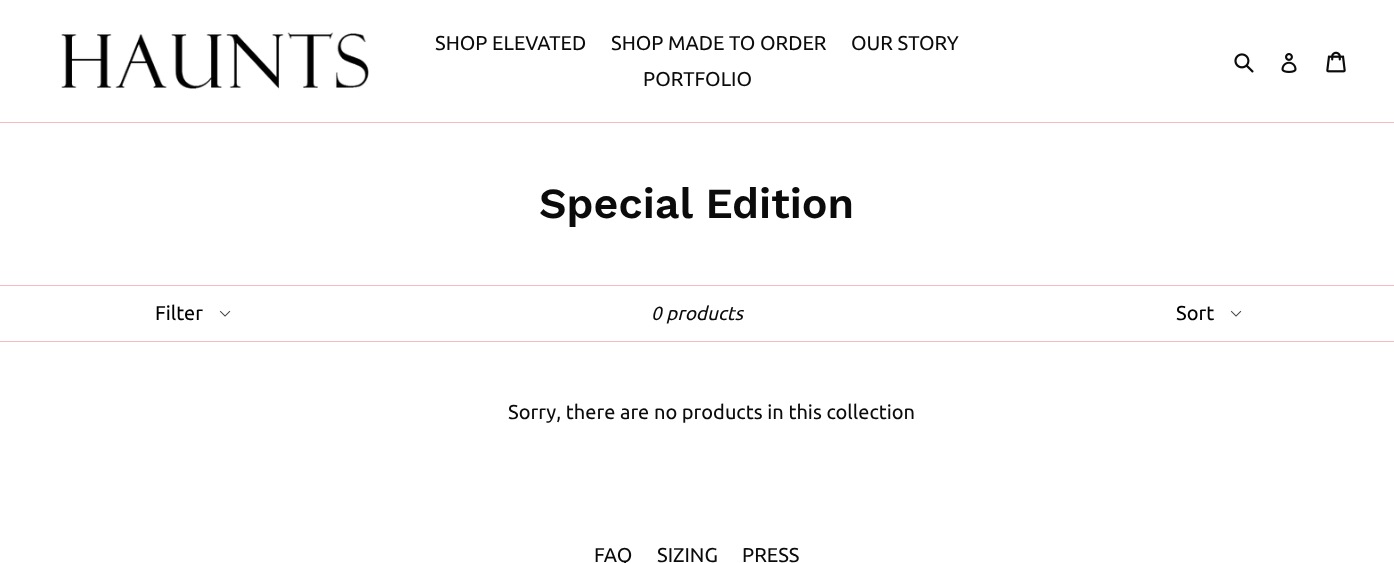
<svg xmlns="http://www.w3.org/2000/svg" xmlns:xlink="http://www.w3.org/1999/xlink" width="1394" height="563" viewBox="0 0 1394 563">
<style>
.cls-1{font:20px Ubuntu;fill:#0b0b0b}
.cls-2{font:600 43px Work Sans;fill:#0b0b0b}
.cls-3{font:20px Ubuntu;fill:#000000}
.cls-4{font:italic 19px Ubuntu;fill:#0b0b0b}
</style>
<rect width="100%" height="100%" fill="#ffffff"/>
<rect fill="#fab9c1" x="0" y="122" width="1394" height="1"/>
<image xlink:href="image0.png" x="61" y="32" width="308" height="57"/>
<image xlink:href="image1.png" x="1234" y="53" width="20" height="20"/>
<image xlink:href="image2.png" x="1281" y="53" width="16" height="20"/>
<image xlink:href="image3.png" x="1326" y="51" width="20" height="22"/>
<rect fill="#fab9c1" x="0" y="285" width="1394" height="1"/>
<rect fill="#fab9c1" x="0" y="341" width="1394" height="1"/>
<image xlink:href="image4.png" x="219" y="310" width="12" height="7"/>
<image xlink:href="image4.png" x="1230" y="310" width="12" height="7"/>
<text class="cls-1" x="435" y="50">SHOP ELEVATED</text>
<text class="cls-1" x="611" y="50">SHOP MADE TO ORDER</text>
<text class="cls-1" x="851" y="50">OUR STORY</text>
<text class="cls-1" x="643" y="86">PORTFOLIO</text>
<text class="cls-2" x="539" y="218">Special Edition</text>
<text class="cls-3" x="155" y="320">Filter</text>
<text class="cls-4" x="651" y="320">0 products</text>
<text class="cls-3" x="1176" y="320">Sort</text>
<text class="cls-1" x="508" y="419">Sorry, there are no products in this collection</text>
<text class="cls-1" x="594" y="562">FAQ</text>
<text class="cls-1" x="657" y="562">SIZING</text>
<text class="cls-1" x="742" y="562">PRESS</text>
</svg>
